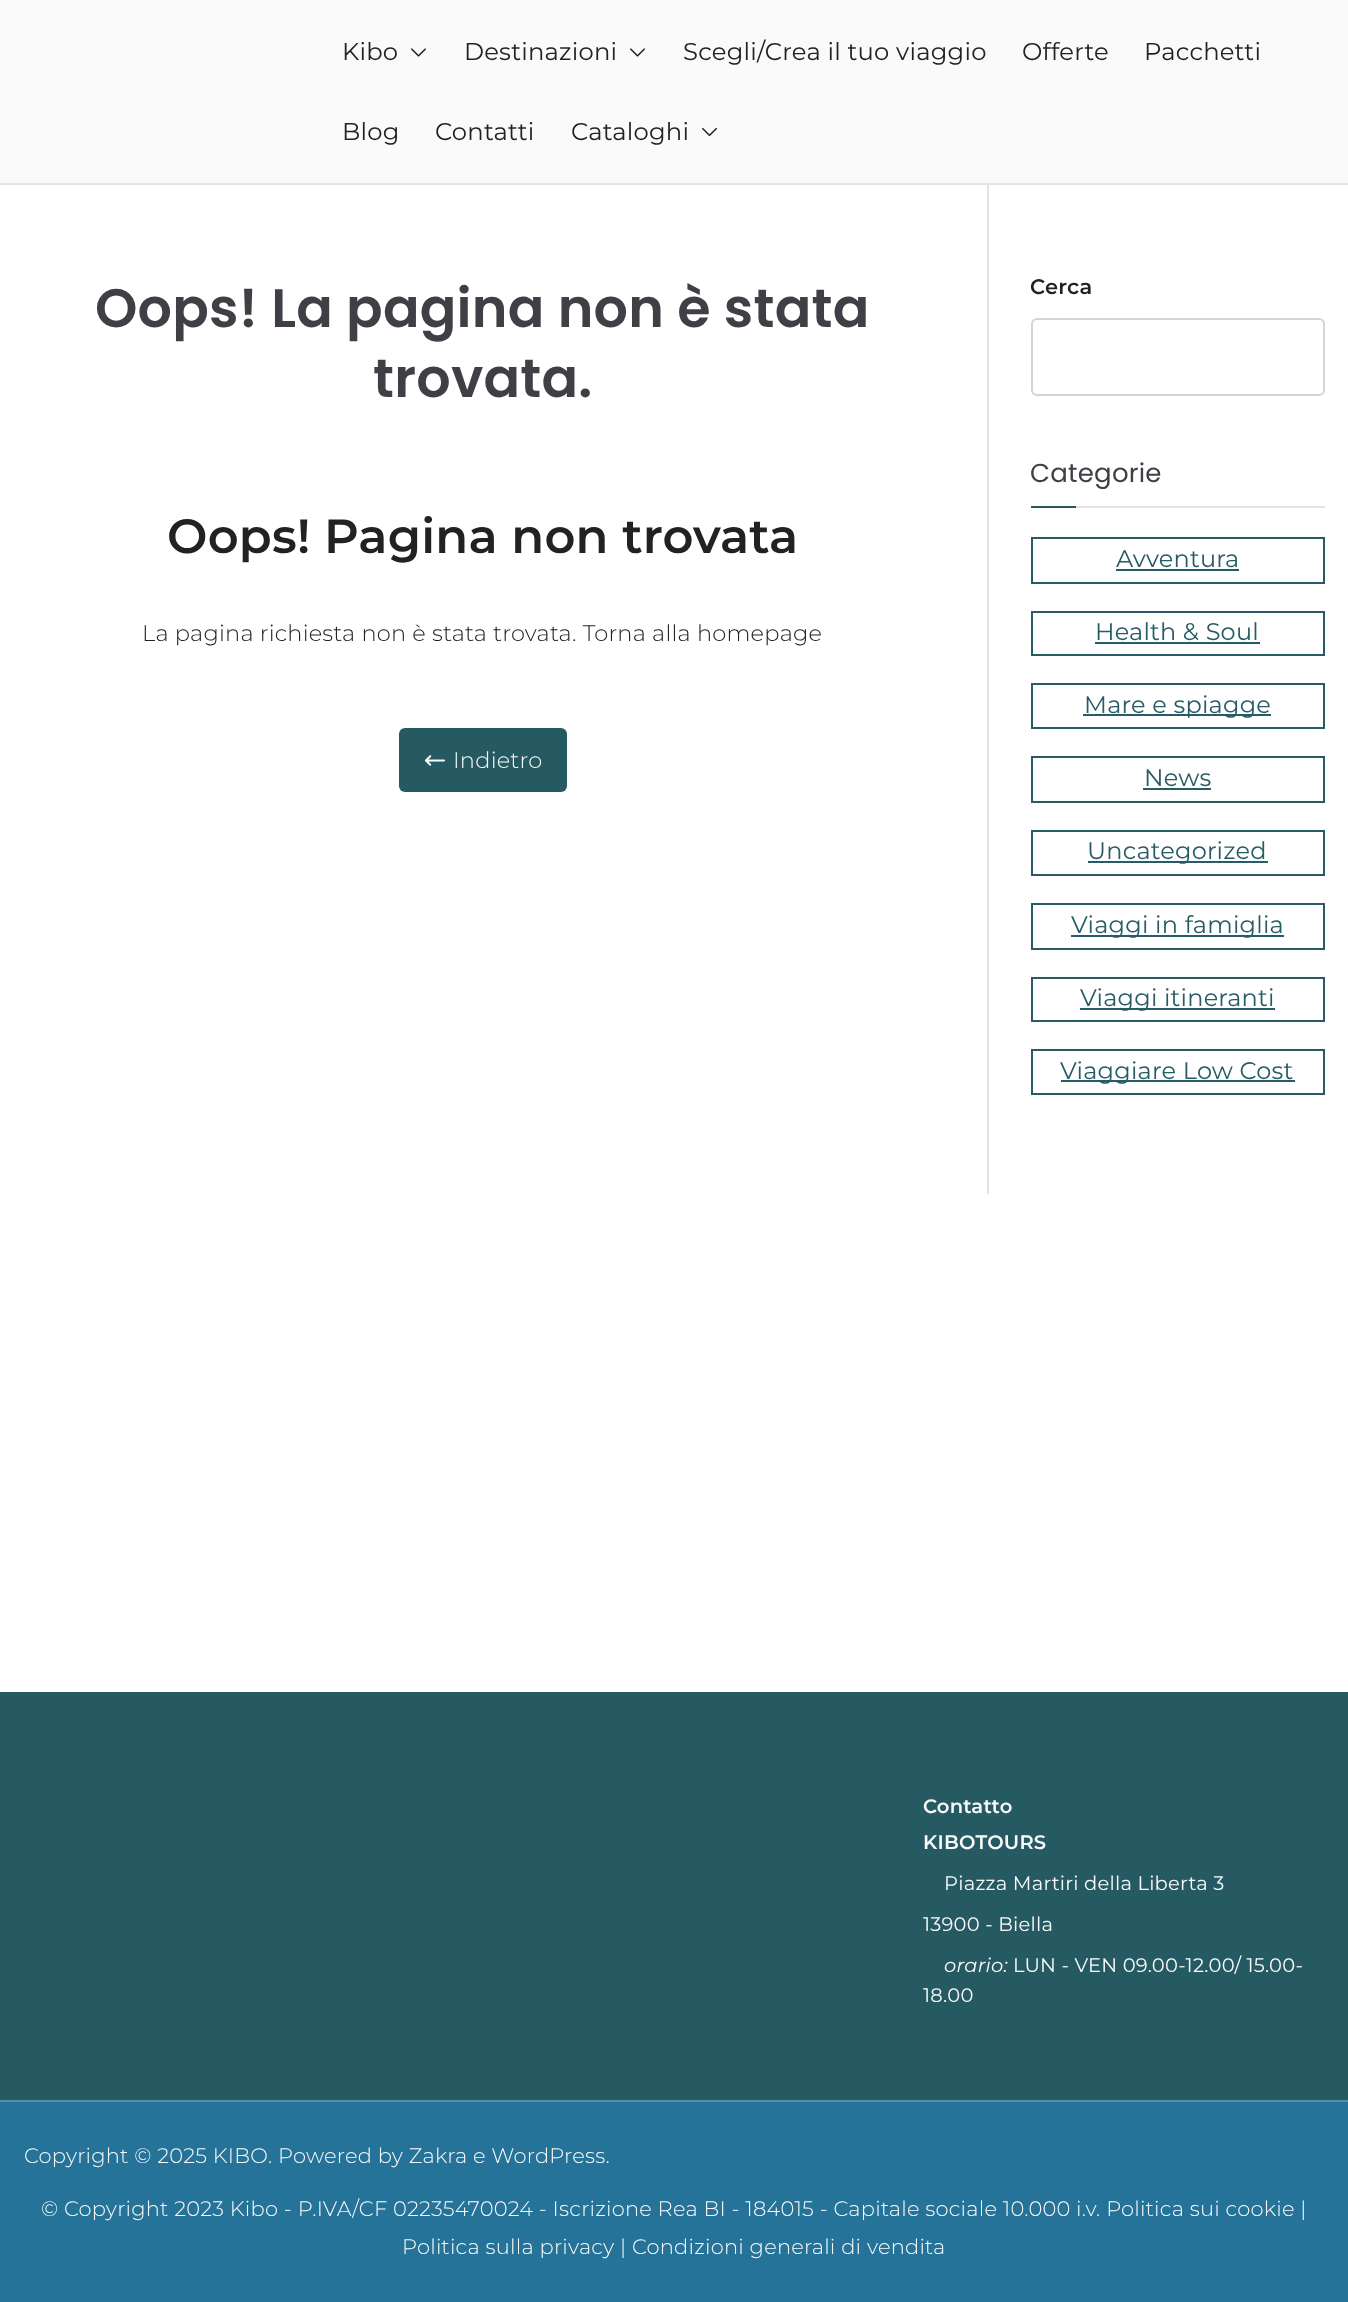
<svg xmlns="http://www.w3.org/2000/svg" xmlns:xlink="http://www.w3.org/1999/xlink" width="1348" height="2302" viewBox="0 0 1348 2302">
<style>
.cls-1{font:24.25px Montserrat;letter-spacing:0.22px;fill:#222222}
.cls-2{font:600 54px Poppins;letter-spacing:0.22px;fill:#3f3f46}
.cls-3{font:600 48px Montserrat;letter-spacing:0.22px;fill:#222222}
.cls-4{font:300 22.5px Montserrat;letter-spacing:0.22px;fill:#222222}
.cls-5{font:300 22.5px Montserrat;letter-spacing:0.22px;fill:#fafafa}
.cls-6{font:600 21px Montserrat;letter-spacing:0.22px;fill:#222222}
.cls-7{font:26px Poppins;letter-spacing:0.22px;fill:#3f3f46}
.cls-8{font:24px Montserrat;letter-spacing:0.22px;fill:#275b65}
.cls-9{font:600 19.5px Montserrat;letter-spacing:0.22px;fill:#fafafa}
.cls-10{font:19.5px Montserrat;letter-spacing:0.22px;fill:#fafafa}
.cls-11{font:italic 19.5px Montserrat;letter-spacing:0.22px;fill:#fafafa}
.cls-12{font:300 21px Montserrat;letter-spacing:0.22px;fill:#fafafa}
</style>
<rect width="100%" height="100%" fill="#fafafa"/>
<rect fill="#e4e4e7" x="0" y="183" width="1348" height="2"/>
<image xlink:href="image0.png" x="411" y="48" width="15" height="9"/>
<image xlink:href="image0.png" x="630" y="48" width="15" height="9"/>
<image xlink:href="image1.png" x="702" y="127" width="15" height="10"/>
<rect fill="#ffffff" x="0" y="185" width="1348" height="1507"/>
<rect fill="#265a63" x="399" y="728" width="168" height="64" rx="6"/>
<image xlink:href="image2.png" x="424" y="755" width="21" height="11"/>
<rect fill="#e4e4e7" x="987" y="185" width="2" height="1009"/>
<rect fill="none" stroke="#d4d4d8" stroke-width="2" x="1032" y="319" width="292" height="76" rx="5"/>
<rect fill="#e4e4e7" x="1076" y="506" width="249" height="2"/>
<rect fill="#265a63" x="1031" y="506" width="45" height="2"/>
<rect fill="none" stroke="#275b65" stroke-width="2" x="1032" y="538" width="292" height="45"/>
<rect fill="#275b65" x="1116" y="569" width="123" height="2"/>
<rect fill="none" stroke="#275b65" stroke-width="2" x="1032" y="612" width="292" height="43"/>
<rect fill="#275b65" x="1095" y="642" width="165" height="2"/>
<rect fill="none" stroke="#275b65" stroke-width="2" x="1032" y="684" width="292" height="44"/>
<rect fill="#275b65" x="1083" y="714" width="188" height="2"/>
<rect fill="none" stroke="#275b65" stroke-width="2" x="1032" y="757" width="292" height="45"/>
<rect fill="#275b65" x="1143" y="788" width="68" height="2"/>
<rect fill="none" stroke="#275b65" stroke-width="2" x="1032" y="831" width="292" height="44"/>
<rect fill="#275b65" x="1088" y="861" width="180" height="2"/>
<rect fill="none" stroke="#275b65" stroke-width="2" x="1032" y="904" width="292" height="45"/>
<rect fill="#275b65" x="1071" y="935" width="213" height="2"/>
<rect fill="none" stroke="#275b65" stroke-width="2" x="1032" y="978" width="292" height="43"/>
<rect fill="#275b65" x="1080" y="1008" width="195" height="2"/>
<rect fill="none" stroke="#275b65" stroke-width="2" x="1032" y="1050" width="292" height="44"/>
<rect fill="#275b65" x="1061" y="1080" width="234" height="2"/>
<rect fill="#265a63" x="0" y="1692" width="1348" height="408"/>
<rect fill="#257399" x="0" y="2102" width="1348" height="200"/>
<rect fill="#518fad" x="0" y="2100" width="1348" height="2"/>
<text class="cls-1" x="342" y="60">Kibo</text>
<text class="cls-1" x="464" y="60">Destinazioni</text>
<text class="cls-1" x="683" y="60">Scegli/Crea il tuo viaggio</text>
<text class="cls-1" x="1022" y="60">Offerte</text>
<text class="cls-1" x="1144" y="60">Pacchetti</text>
<text class="cls-1" x="342" y="140">Blog</text>
<text class="cls-1" x="435" y="140">Contatti</text>
<text class="cls-1" x="571" y="140">Cataloghi</text>
<text class="cls-2" x="95" y="327">Oops! La pagina non è stata</text>
<text class="cls-2" x="373" y="397">trovata.</text>
<text class="cls-3" x="167" y="553">Oops! Pagina non trovata</text>
<text class="cls-4" x="142" y="641">La pagina richiesta non è stata trovata. Torna alla homepage</text>
<text class="cls-5" x="453" y="768">Indietro</text>
<text class="cls-6" x="1030" y="294">Cerca</text>
<text class="cls-7" x="1030" y="482">Categorie</text>
<text class="cls-8" x="1116" y="567">Avventura</text>
<text class="cls-8" x="1095" y="640">Health &amp; Soul</text>
<text class="cls-8" x="1084" y="713">Mare e spiagge</text>
<text class="cls-8" x="1144" y="786">News</text>
<text class="cls-8" x="1087" y="859">Uncategorized</text>
<text class="cls-8" x="1071" y="933">Viaggi in famiglia</text>
<text class="cls-8" x="1080" y="1006">Viaggi itineranti</text>
<text class="cls-8" x="1060" y="1079">Viaggiare Low Cost</text>
<text class="cls-9"><tspan x="923" y="1813">Contatto</tspan><tspan x="923" y="1849">KIBOTOURS</tspan></text>
<text class="cls-10" x="944" y="1890">Piazza Martiri della Liberta 3</text>
<text class="cls-10" x="923" y="1931">13900 - Biella</text>
<text class="cls-11" x="944" y="1972">orario:</text>
<text class="cls-10" x="1013" y="1972">LUN - VEN 09.00-12.00/ 15.00-</text>
<text class="cls-10" x="923" y="2002">18.00</text>
<text class="cls-12" x="24" y="2163">Copyright © 2025 KIBO</text>
<text class="cls-12" x="268" y="2163">. Powered by Zakra e WordPress.</text>
<text class="cls-12" x="41" y="2216">© Copyright 2023 Kibo - P.IVA/CF 02235470024 - Iscrizione Rea BI - 184015 - Capitale sociale 10.000 i.v. Politica sui cookie |</text>
<text class="cls-12" x="402" y="2254">Politica sulla privacy | Condizioni generali di vendita</text>
</svg>
